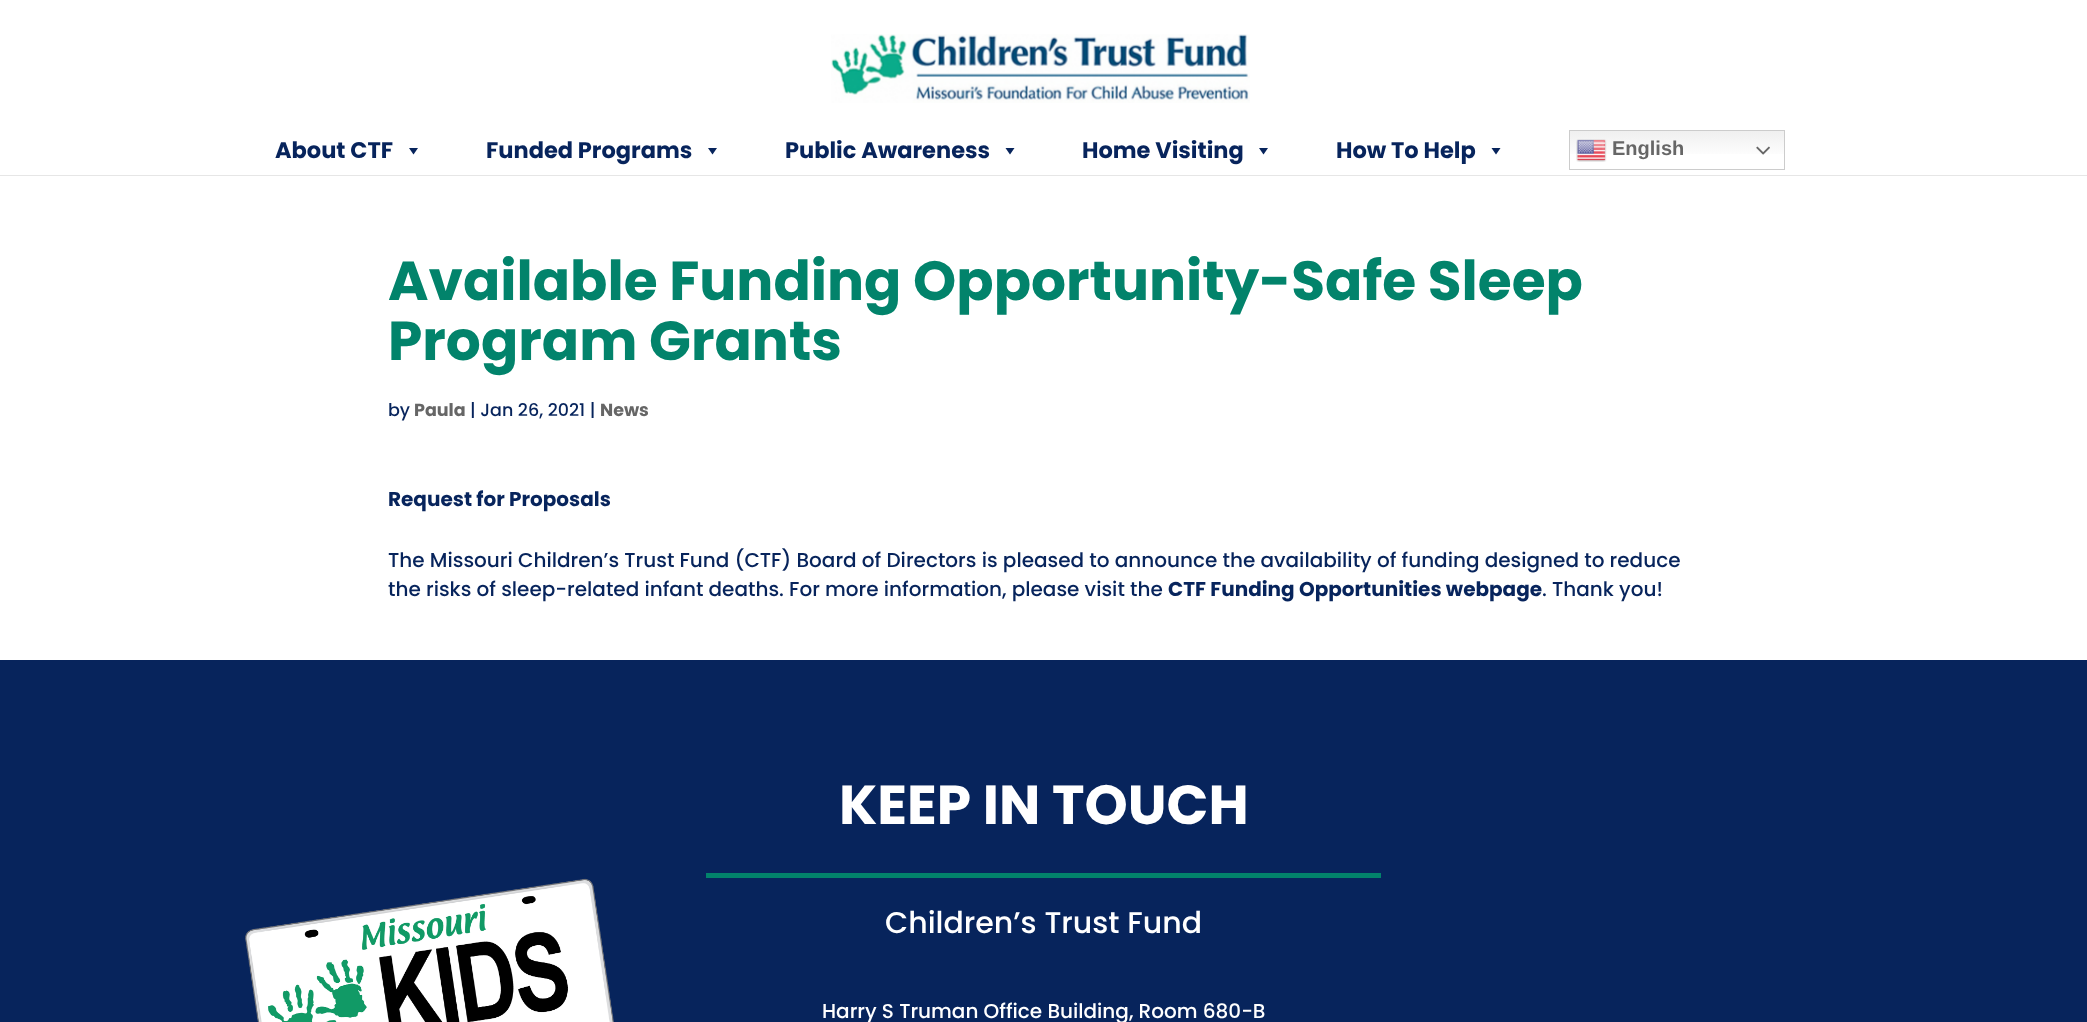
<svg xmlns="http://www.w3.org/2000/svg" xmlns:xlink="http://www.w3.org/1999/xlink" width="2087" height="1022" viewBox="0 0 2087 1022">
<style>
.cls-1{font:bold 22.5px Poppins;fill:#07245c}
.cls-2{font:bold 20px Liberation Sans;fill:#666666}
.cls-3{font:bold 55px Poppins;fill:#02836b}
.cls-4{font:500 17.5px Poppins;fill:#07245c}
.cls-5{font:bold 17.5px Poppins;fill:#666666}
.cls-6{font:bold 20px Poppins;fill:#07245c}
.cls-7{font:500 20px Poppins;fill:#07245c}
.cls-8{font:bold 55px Poppins;fill:#ffffff}
.cls-9{font:500 30px Poppins;fill:#ffffff}
.cls-10{font:500 20px Poppins;fill:#ffffff}
</style>
<defs>
<linearGradient id="g1" gradientUnits="userSpaceOnUse" x1="1677" y1="130" x2="1677" y2="170"><stop offset="0" stop-color="#efefef"/><stop offset="0.7" stop-color="#ffffff"/></linearGradient>
</defs>
<rect width="100%" height="100%" fill="#ffffff"/>
<path fill="#e6e6e6" d="M0 175V176H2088V1V175Z"/>
<image xlink:href="image0.png" x="831" y="34" width="419" height="69"/>
<path fill="#07245c" d="M418 148L413.5 154.5L409 148Z"/>
<path fill="#07245c" d="M717 148L712.5 154.5L708 148Z"/>
<path fill="#07245c" d="M1014.5 148L1010 154.5L1005.5 148Z"/>
<path fill="#07245c" d="M1268 148L1263.5 154.5L1259 148Z"/>
<path fill="#07245c" d="M1500.5 148L1496 154.5L1491.5 148Z"/>
<rect fill="url(#g1)" x="1570" y="131" width="214" height="23"/>
<rect fill="none" stroke="#cccccc" x="1569.5" y="130.5" width="215" height="39"/>
<image xlink:href="image1.png" x="1576" y="139" width="31" height="23"/>
<image xlink:href="image2.png" x="1756" y="146" width="14" height="9"/>
<rect fill="#07245c" x="0" y="660" width="2087" height="362"/>
<rect fill="#02836b" x="706" y="873" width="675" height="5"/>
<image xlink:href="image3.png" x="245" y="878" width="369" height="144"/>
<text class="cls-1" x="275" y="158">About CTF</text>
<text class="cls-1" x="486" y="158">Funded Programs</text>
<text class="cls-1" x="785" y="158">Public Awareness</text>
<text class="cls-1" x="1082" y="158">Home Visiting</text>
<text class="cls-1" x="1336" y="158">How To Help</text>
<text class="cls-2" x="1612" y="155">English</text>
<text class="cls-3"><tspan x="388" y="300">Available Funding Opportunity-Safe Sleep</tspan><tspan x="388" y="360">Program Grants</tspan></text>
<text class="cls-4" x="388" y="416">by</text>
<text class="cls-5" x="414" y="416">Paula</text>
<text class="cls-4" x="470" y="416">| Jan 26, 2021 |</text>
<text class="cls-5" x="600" y="416">News</text>
<text class="cls-6" x="388" y="506">Request for Proposals</text>
<text class="cls-7"><tspan x="388" y="567">The Missouri Children’s Trust Fund (CTF) Board of Directors is pleased to announce the availability of funding designed to reduce</tspan><tspan x="388" y="596">the risks of sleep-related infant deaths. For more information, please visit the</tspan></text>
<text class="cls-6" x="1168" y="596">CTF Funding Opportunities webpage</text>
<text class="cls-7" x="1542" y="596">. Thank you!</text>
<text class="cls-8" x="839" y="824">KEEP IN TOUCH</text>
<text class="cls-9" x="885" y="933">Children’s Trust Fund</text>
<text class="cls-10" x="822" y="1018">Harry S Truman Office Building, Room 680-B</text>
</svg>
